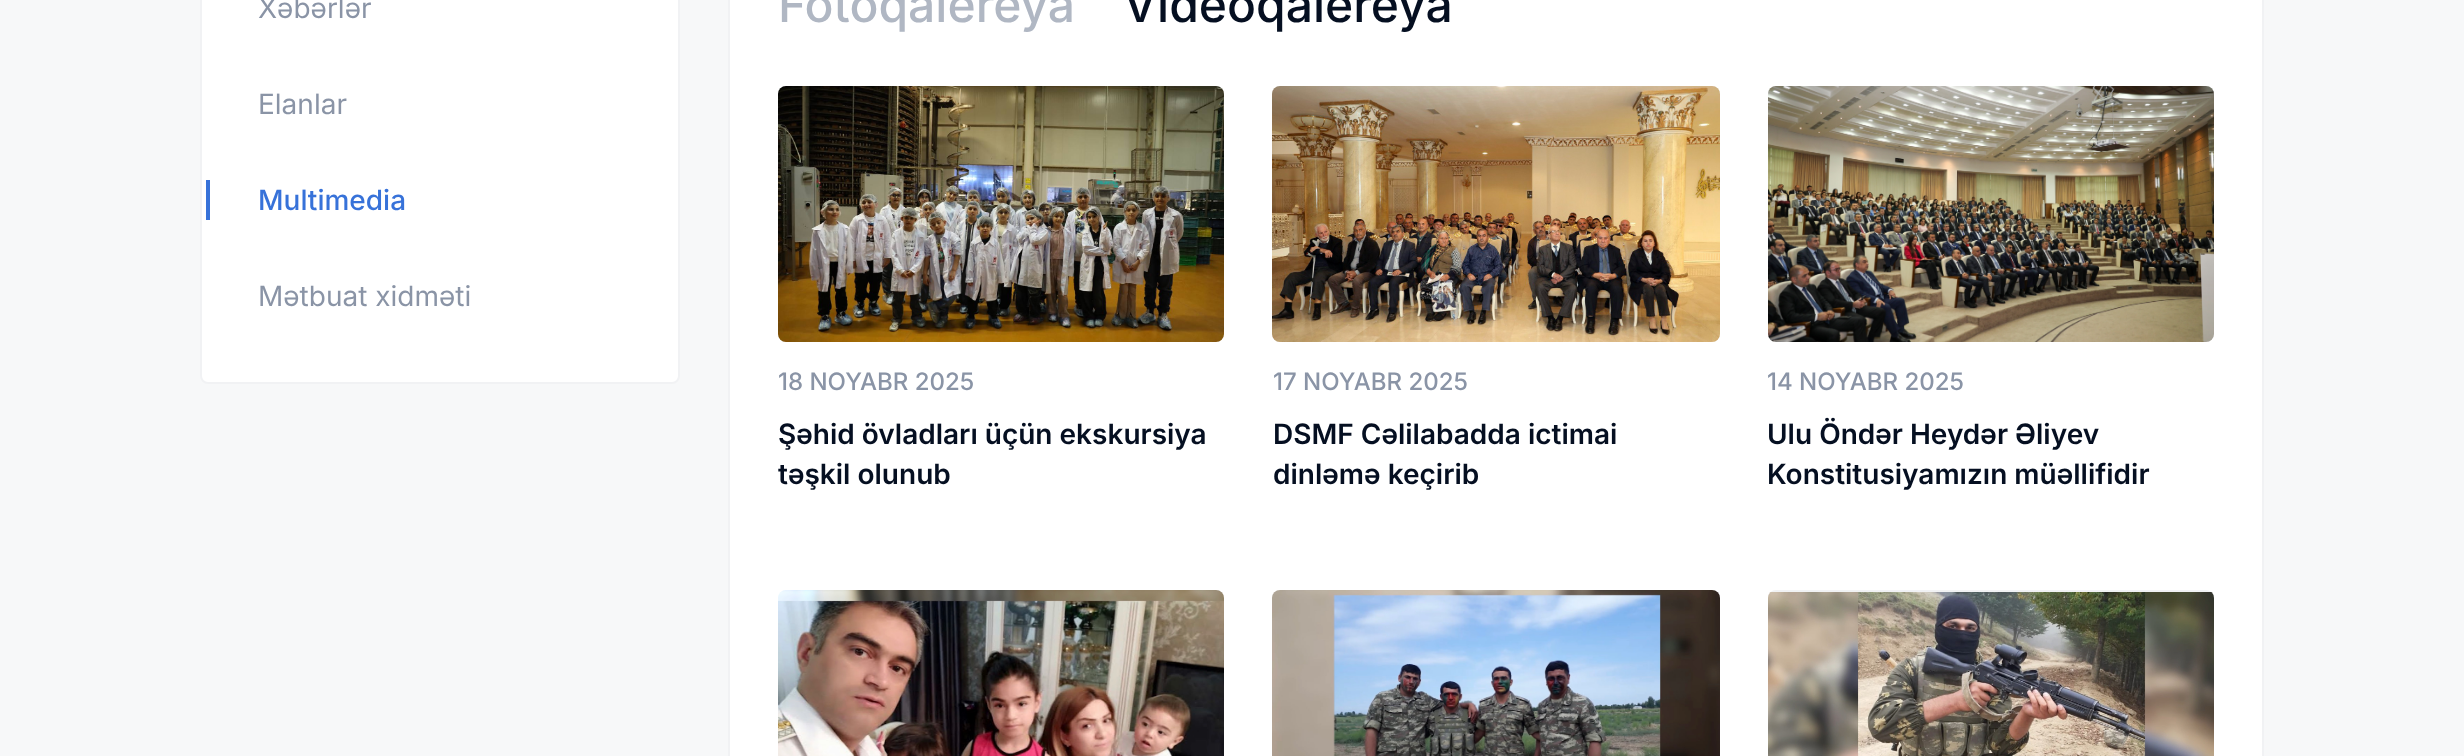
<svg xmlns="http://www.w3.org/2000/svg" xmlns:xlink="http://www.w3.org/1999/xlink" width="2464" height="756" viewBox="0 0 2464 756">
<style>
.cls-1{font:28px Inter;fill:#8a94a6}
.cls-2{font:500 28px Inter;fill:#3772d9}
.cls-3{font:500 48px Inter;fill:#b0b7c3}
.cls-4{font:500 48px Inter;fill:#050f21}
.cls-5{font:500 24px Inter;fill:#8a94a6}
.cls-6{font:600 28px Inter;fill:#050f21}
</style>
<rect width="100%" height="100%" fill="#f7f8f9"/>
<rect fill="#ffffff" stroke="#f1f2f4" stroke-width="2" x="201" y="-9" width="478" height="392" rx="7"/>
<rect fill="#3772d9" x="206" y="180" width="4" height="40"/>
<rect fill="#ffffff" stroke="#f1f2f4" stroke-width="2" x="729" y="-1" width="1534" height="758"/>
<rect fill="#f1f2f4" x="778" y="86" width="446" height="256" rx="8"/>
<image xlink:href="image0.png" x="778" y="86" width="446" height="256"/>
<rect fill="#f1f2f4" x="1272" y="86" width="448" height="256" rx="8"/>
<image xlink:href="image1.png" x="1272" y="86" width="448" height="256"/>
<rect fill="#f1f2f4" x="1768" y="86" width="446" height="256" rx="8"/>
<image xlink:href="image2.png" x="1768" y="86" width="446" height="256"/>
<image xlink:href="image3.png" x="778" y="590" width="446" height="166"/>
<image xlink:href="image4.png" x="1272" y="590" width="448" height="166"/>
<rect fill="#f1f2f4" x="1768" y="590" width="446" height="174" rx="8"/>
<image xlink:href="image5.png" x="1768" y="592" width="446" height="164"/>
<text class="cls-1" x="258" y="18">Xəbərlər</text>
<text class="cls-1" x="258" y="114">Elanlar</text>
<text class="cls-2" x="258" y="210">Multimedia</text>
<text class="cls-1" x="258" y="306">Mətbuat xidməti</text>
<text class="cls-3" x="778" y="22">Fotoqalereya</text>
<text class="cls-4" x="1123" y="22">Videoqalereya</text>
<text class="cls-5" x="778" y="390">18 NOYABR 2025</text>
<text class="cls-6"><tspan x="778" y="444">Şəhid övladları üçün ekskursiya</tspan><tspan x="778" y="484">təşkil olunub</tspan></text>
<text class="cls-5" x="1273" y="390">17 NOYABR 2025</text>
<text class="cls-6"><tspan x="1273" y="444">DSMF Cəlilabadda ictimai</tspan><tspan x="1273" y="484">dinləmə keçirib</tspan></text>
<text class="cls-5" x="1767" y="390">14 NOYABR 2025</text>
<text class="cls-6"><tspan x="1767" y="444">Ulu Öndər Heydər Əliyev</tspan><tspan x="1767" y="484">Konstitusiyamızın müəllifidir</tspan></text>
</svg>
